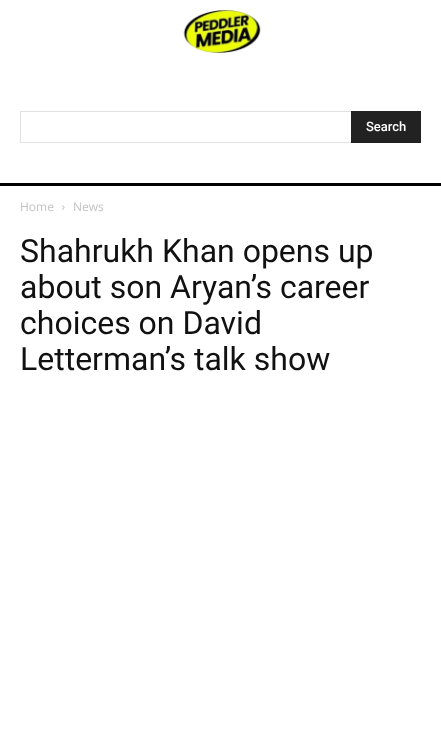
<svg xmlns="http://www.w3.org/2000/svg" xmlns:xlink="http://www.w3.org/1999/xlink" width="441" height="745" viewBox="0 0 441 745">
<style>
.cls-1{font:500 13px Roboto;fill:#ffffff}
.cls-2{font:12px Open Sans;fill:#c3c3c3}
.cls-3{font:32px Roboto;fill:#111111}
</style>
<rect width="100%" height="100%" fill="#ffffff"/>
<rect fill="#000000" x="0" y="183" width="441" height="3"/>
<image xlink:href="image0.png" x="183" y="10" width="78" height="43"/>
<rect fill="none" stroke="#e1e1e1" x="20.5" y="111.5" width="400" height="31"/>
<rect fill="#222222" x="351" y="111" width="70" height="32"/>
<image xlink:href="image1.png" x="62" y="205" width="3" height="5"/>
<text class="cls-1" x="366" y="131">Search</text>
<text class="cls-2" x="20" y="211">Home</text>
<text class="cls-2" x="73" y="211">News</text>
<text class="cls-3"><tspan x="20" y="262">Shahrukh Khan opens up</tspan><tspan x="20" y="298">about son Aryan’s career</tspan><tspan x="20" y="334">choices on David</tspan><tspan x="20" y="370">Letterman’s talk show</tspan></text>
</svg>
